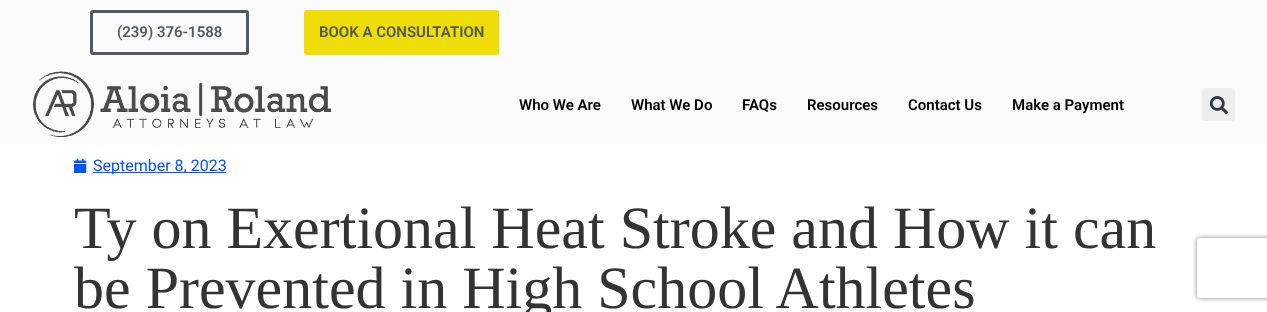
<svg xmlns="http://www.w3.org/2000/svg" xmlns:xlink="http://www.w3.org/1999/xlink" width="1267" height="312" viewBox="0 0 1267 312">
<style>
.cls-1{font:600 15px Roboto;fill:#54595f}
.cls-2{font:600 15px Roboto;fill:#000000}
.cls-3{font:16px Roboto;fill:#0055fd}
.cls-4{font:60px Liberation Serif;fill:#333333}
</style>
<defs>
<clipPath id="clip1"><path d="M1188 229H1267V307H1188ZM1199 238H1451C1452 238 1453 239 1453 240V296C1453 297 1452 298 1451 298H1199C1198 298 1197 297 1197 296V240C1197 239 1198 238 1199 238Z" clip-rule="evenodd"/></clipPath>
</defs>
<rect width="100%" height="100%" fill="#ffffff"/>
<rect fill="#fafafa" x="0" y="0" width="1267" height="144"/>
<rect fill="none" stroke="#54595f" stroke-width="3" x="91.5" y="11.5" width="156" height="42" rx="1.5"/>
<rect fill="#eedd06" x="304" y="10" width="195" height="45" rx="3"/>
<image xlink:href="image0.png" x="33" y="71" width="298" height="66"/>
<rect fill="#eeeeee" x="1202" y="88" width="33" height="33" rx="3"/>
<image xlink:href="image1.png" x="1209" y="96" width="19" height="19"/>
<image xlink:href="image2.png" x="74" y="158" width="13" height="14"/>
<rect fill="#0055fd" x="74" y="172" width="12" height="1"/>
<rect fill="#0055fd" x="93" y="172" width="133" height="1"/>
<g clip-path="url(#clip1)">
<rect fill="#808080" filter="blur(2.5px)" x="1197" y="238" width="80" height="60" rx="2"/>
</g>
<text class="cls-1" x="117" y="37">(239) 376-1588</text>
<text class="cls-1" x="319" y="37">BOOK A CONSULTATION</text>
<text class="cls-2" x="519" y="110">Who We Are</text>
<text class="cls-2" x="631" y="110">What We Do</text>
<text class="cls-2" x="742" y="110">FAQs</text>
<text class="cls-2" x="807" y="110">Resources</text>
<text class="cls-2" x="908" y="110">Contact Us</text>
<text class="cls-2" x="1012" y="110">Make a Payment</text>
<text class="cls-3" x="93" y="171">September 8, 2023</text>
<text class="cls-4"><tspan x="74" y="248">Ty on Exertional Heat Stroke and How it can</tspan><tspan x="74" y="308">be Prevented in High School Athletes</tspan></text>
</svg>
